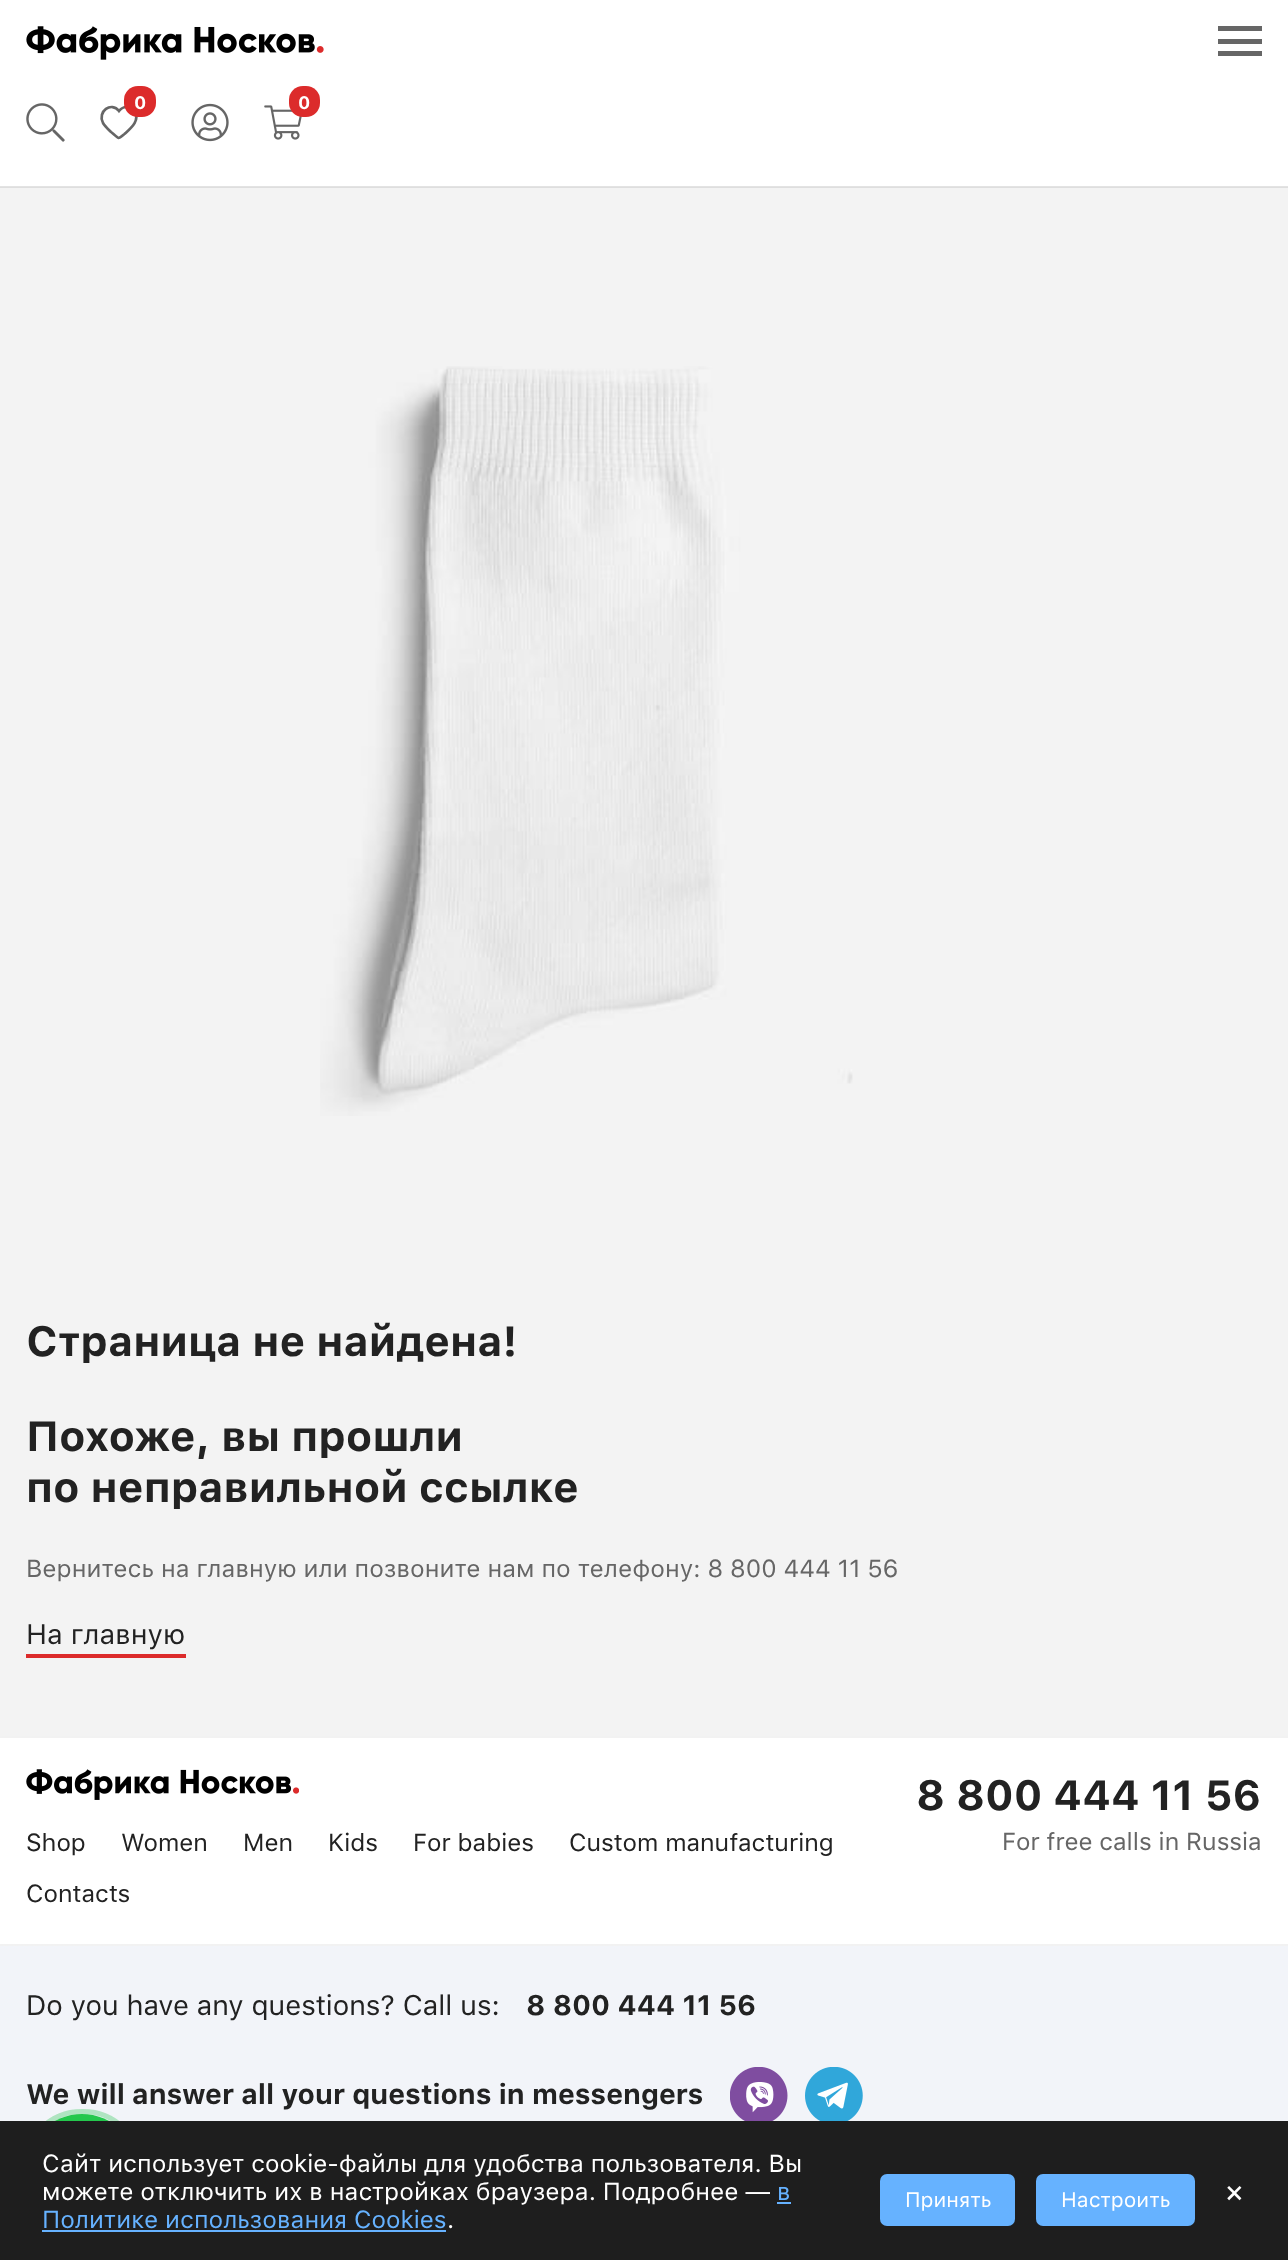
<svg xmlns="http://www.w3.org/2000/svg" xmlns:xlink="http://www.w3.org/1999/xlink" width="1288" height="2260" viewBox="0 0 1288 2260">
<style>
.cls-1{font:bold 18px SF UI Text;fill:#ffffff}
.cls-2{font:bold 42px SF UI Text;fill:#222222}
.cls-3{font:24.5px SF UI Text;fill:#666666}
.cls-4{font:28px SF UI Text;fill:#222222}
.cls-5{font:24.5px SF UI Text;fill:#222222}
.cls-6{font:bold 28px SF UI Text;fill:#222222}
.cls-7{font:24.5px SF UI Text;fill:#ffffff}
.cls-8{font:24.5px SF UI Text;fill:#66b2ff}
.cls-9{font:21px SF UI Text;fill:#ffffff}
.cls-10{font:35px SF UI Text;fill:#ffffff}
</style>
<rect width="100%" height="100%" fill="#ffffff"/>
<rect fill="#e3e3e3" x="0" y="186" width="1288" height="1"/>
<rect fill="#666666" x="1218" y="26" width="44" height="5"/>
<rect fill="#666666" x="1218" y="39" width="44" height="5"/>
<rect fill="#666666" x="1218" y="51" width="44" height="5"/>
<image xlink:href="image0.png" x="26" y="26" width="298" height="34"/>
<image xlink:href="image1.png" x="26" y="103" width="39" height="39"/>
<path fill="none" stroke="#666666" stroke-width="2.7" d="M126.5 107C123.5 107 121 108.5 119 111C111.5 101 97 111.5 103 123C105 126.5 108 129 111 132C112.5 133 117 137.5 118.5 138C120.5 138 123 135 124.5 134C130.5 128.5 141 120 134 111C132.5 108.5 129.5 107 126.5 107Z"/>
<rect fill="#dc2b2b" x="124" y="86" width="32" height="31" rx="14"/>
<image xlink:href="image2.png" x="191" y="103" width="38" height="39"/>
<image xlink:href="image3.png" x="264" y="105" width="38" height="35"/>
<rect fill="#dc2b2b" x="289" y="86" width="31" height="31" rx="14"/>
<rect fill="#f3f3f3" x="0" y="188" width="1288" height="1548"/>
<rect fill="#dedede" x="0" y="187" width="1288" height="1"/>
<image xlink:href="image4.png" x="320" y="366" width="533" height="750"/>
<rect fill="#dc2b2b" x="26" y="1654" width="160" height="4"/>
<rect fill="#f2f2f2" x="0" y="1736" width="1288" height="2"/>
<rect fill="#f2f2f2" x="0" y="1944" width="1288" height="2"/>
<image xlink:href="image5.png" x="26" y="1769" width="273" height="31"/>
<rect fill="#f2f4f9" x="0" y="1946" width="1288" height="175"/>
<image xlink:href="image6.png" x="730" y="2067" width="58" height="54"/>
<image xlink:href="image7.png" x="805" y="2067" width="58" height="54"/>
<circle fill="#00bf2f" fill-opacity="0.85" cx="82" cy="2170" r="56"/>
<text class="cls-1" x="134" y="109">0</text>
<text class="cls-1" x="298" y="109">0</text>
<text class="cls-2" x="26" y="1356">Страница не найдена!</text>
<text class="cls-2"><tspan x="26" y="1451">Похоже, вы прошли</tspan><tspan x="26" y="1502">по неправильной ссылке</tspan></text>
<text class="cls-3" x="26" y="1577">Вернитесь на главную или позвоните нам по телефону: 8 800 444 11 56</text>
<text class="cls-4" x="26" y="1644">На главную</text>
<text class="cls-2" x="916" y="1810">8 800 444 11 56</text>
<text class="cls-3" x="1002" y="1850">For free calls in Russia</text>
<text class="cls-5" x="26" y="1851">Shop</text>
<text class="cls-5" x="121" y="1851">Women</text>
<text class="cls-5" x="243" y="1851">Men</text>
<text class="cls-5" x="328" y="1851">Kids</text>
<text class="cls-5" x="413" y="1851">For babies</text>
<text class="cls-5" x="569" y="1851">Custom manufacturing</text>
<text class="cls-5" x="26" y="1902">Contacts</text>
<text class="cls-4" x="26" y="2015">Do you have any questions? Call us:</text>
<text class="cls-6" x="526" y="2015">8 800 444 11 56</text>
<text class="cls-6" x="26" y="2104">We will answer all your questions in messengers</text>
<rect fill="none" stroke="#00bf2f" stroke-opacity="0.15" stroke-width="5" x="23.5" y="2111.5" width="118" height="117" rx="58.5"/>
<rect fill="none" stroke="#00bf2f" stroke-opacity="0.15" stroke-width="5" x="23.5" y="2111.5" width="118" height="117" rx="58.5"/>
<rect fill="#1e1e1e" x="0" y="2121" width="1288" height="139"/>
<text class="cls-7"><tspan x="42" y="2172">Сайт использует cookie-файлы для удобства пользователя. Вы</tspan><tspan x="42" y="2200">можете отключить их в настройках браузера. Подробнее —</tspan></text>
<text class="cls-8" x="777" y="2200">в</text>
<rect fill="#66b2ff" x="777" y="2202" width="14" height="2"/>
<text class="cls-8" x="42" y="2228">Политике использования Cookies</text>
<rect fill="#66b2ff" x="42" y="2230" width="404" height="2"/>
<text class="cls-7" x="447" y="2228">.</text>
<rect fill="#66b2ff" x="880" y="2174" width="135" height="52" rx="7"/>
<text class="cls-9" x="905" y="2207">Принять</text>
<rect fill="#66b2ff" x="1036" y="2174" width="159" height="52" rx="7"/>
<text class="cls-9" x="1061" y="2207">Настроить</text>
<text class="cls-10" x="1223" y="2203">×</text>
</svg>
